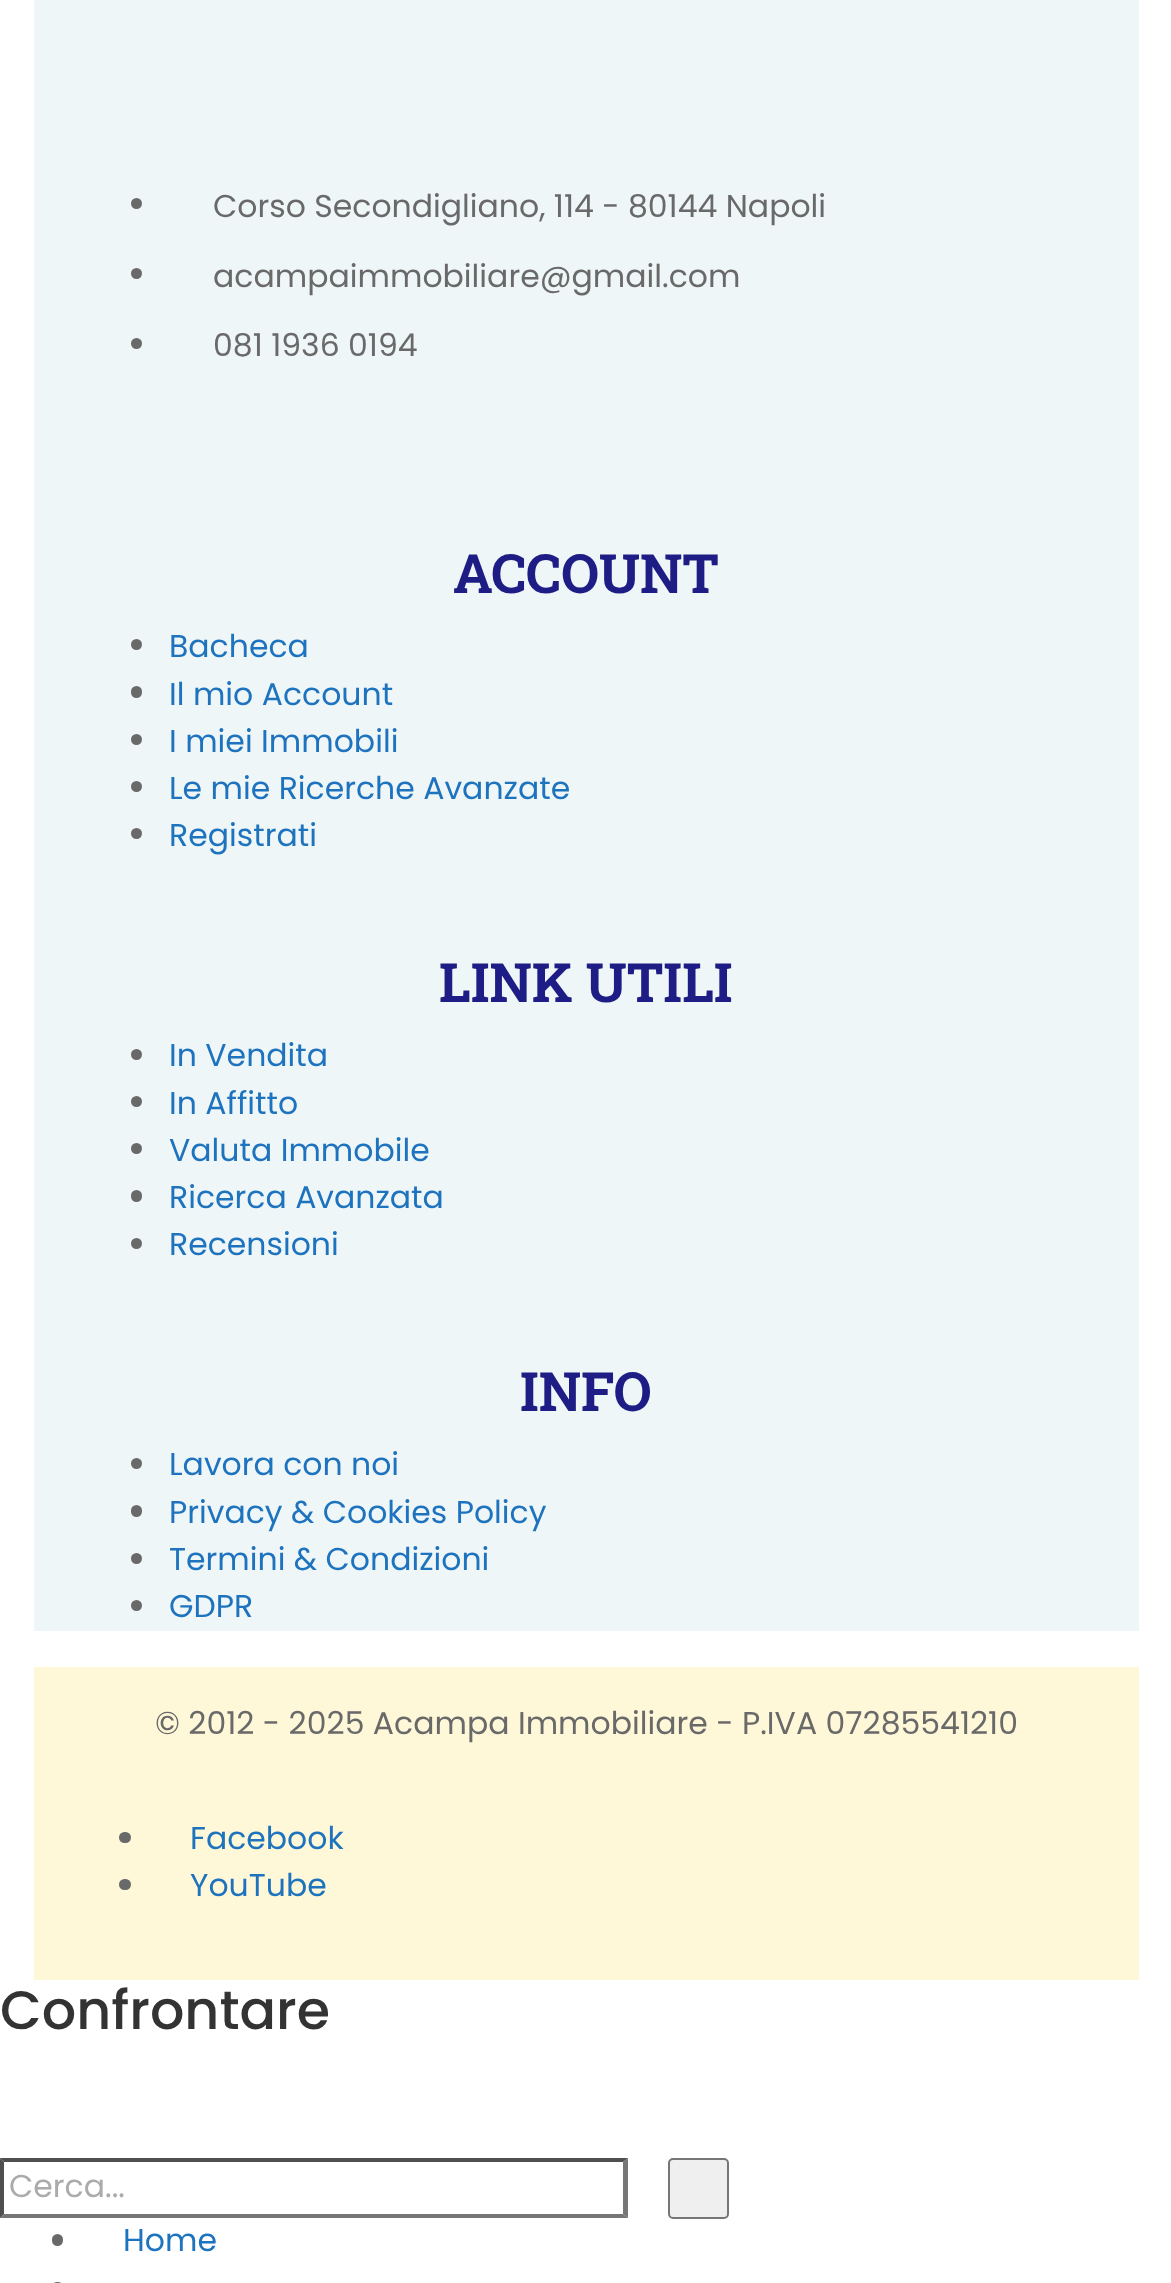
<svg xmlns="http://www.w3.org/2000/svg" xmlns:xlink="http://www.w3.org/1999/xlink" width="1171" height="2283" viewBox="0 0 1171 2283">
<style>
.cls-1{font:31.5px Poppins;fill:#696969}
.cls-2{font:bold 54px Roboto Slab;fill:#1e1d85}
.cls-3{font:31.5px Poppins;fill:#1e73be}
.cls-4{font:500 54px Poppins;fill:#333333}
.cls-5{font:31.5px Poppins;fill:#ababab}
</style>
<rect width="100%" height="100%" fill="#ffffff"/>
<rect fill="#eff6f7" x="34" y="0" width="1105" height="1631"/>
<circle fill="#696969" cx="136.5" cy="203.5" r="5.5"/>
<circle fill="#696969" cx="136.5" cy="273.5" r="5.5"/>
<circle fill="#696969" cx="136.5" cy="343.5" r="5.5"/>
<circle fill="#696969" cx="136.5" cy="644.5" r="5.5"/>
<rect fill="#696969" x="131" y="686" width="11" height="12" rx="5.5"/>
<circle fill="#696969" cx="136.5" cy="739.5" r="5.5"/>
<circle fill="#696969" cx="136.5" cy="786.5" r="5.5"/>
<circle fill="#696969" cx="136.5" cy="833.5" r="5.5"/>
<circle fill="#696969" cx="136.5" cy="1054.5" r="5.5"/>
<circle fill="#696969" cx="136.5" cy="1101.5" r="5.5"/>
<circle fill="#696969" cx="136.5" cy="1148.5" r="5.5"/>
<rect fill="#696969" x="131" y="1190" width="11" height="12" rx="5.5"/>
<circle fill="#696969" cx="136.5" cy="1243.5" r="5.5"/>
<circle fill="#696969" cx="136.5" cy="1463.5" r="5.5"/>
<rect fill="#696969" x="131" y="1505" width="11" height="12" rx="5.5"/>
<circle fill="#696969" cx="136.5" cy="1558.5" r="5.5"/>
<circle fill="#696969" cx="136.5" cy="1605.5" r="5.5"/>
<rect fill="#fef7d8" x="34" y="1667" width="1105" height="313"/>
<rect fill="#696969" x="119" y="1832" width="12" height="11" rx="5.5"/>
<rect fill="#696969" x="119" y="1879" width="12" height="11" rx="5.5"/>
<path fill="#4f4f4f" d="M0 2158H628L623 2162H4Z"/>
<path fill="#767676" d="M628 2158V2218L623 2214V2162Z"/>
<path fill="#767676" d="M628 2218H0L4 2214H623Z"/>
<path fill="#4f4f4f" d="M0 2218V2158L4 2162V2214Z"/>
<rect fill="#efefef" stroke="#767676" stroke-width="2" x="669" y="2159" width="59" height="59" rx="4"/>
<rect fill="#696969" x="52" y="2234" width="11" height="12" rx="5.5"/>
<rect fill="#696969" x="52" y="2282" width="11" height="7" rx="5.5"/>
<text class="cls-1" x="213" y="217">Corso Secondigliano, 114 - 80144 Napoli</text>
<text class="cls-1" x="213" y="287">acampaimmobiliare@gmail.com</text>
<text class="cls-1" x="213" y="356">081 1936 0194</text>
<text class="cls-2" x="453" y="593">ACCOUNT</text>
<text class="cls-3"><tspan x="169" y="657">Bacheca</tspan><tspan x="169" y="705">Il mio Account</tspan><tspan x="169" y="752">I miei Immobili</tspan><tspan x="169" y="799">Le mie Ricerche Avanzate</tspan><tspan x="169" y="846">Registrati</tspan></text>
<text class="cls-2" x="439" y="1002">LINK UTILI</text>
<text class="cls-3"><tspan x="169" y="1066">In Vendita</tspan><tspan x="169" y="1114">In Affitto</tspan><tspan x="169" y="1161">Valuta Immobile</tspan><tspan x="169" y="1208">Ricerca Avanzata</tspan><tspan x="169" y="1255">Recensioni</tspan></text>
<text class="cls-2" x="520" y="1411">INFO</text>
<text class="cls-3"><tspan x="169" y="1475">Lavora con noi</tspan><tspan x="169" y="1523">Privacy &amp; Cookies Policy</tspan><tspan x="169" y="1570">Termini &amp; Condizioni</tspan><tspan x="169" y="1617">GDPR</tspan></text>
<text class="cls-1" x="155" y="1734">© 2012 - 2025 Acampa Immobiliare - P.IVA 07285541210</text>
<text class="cls-3"><tspan x="190" y="1849">Facebook</tspan><tspan x="190" y="1896">YouTube</tspan></text>
<text class="cls-4" x="0" y="2029">Confrontare</text>
<text class="cls-5" x="9" y="2197">Cerca...</text>
<text class="cls-3" x="123" y="2251">Home</text>
</svg>
